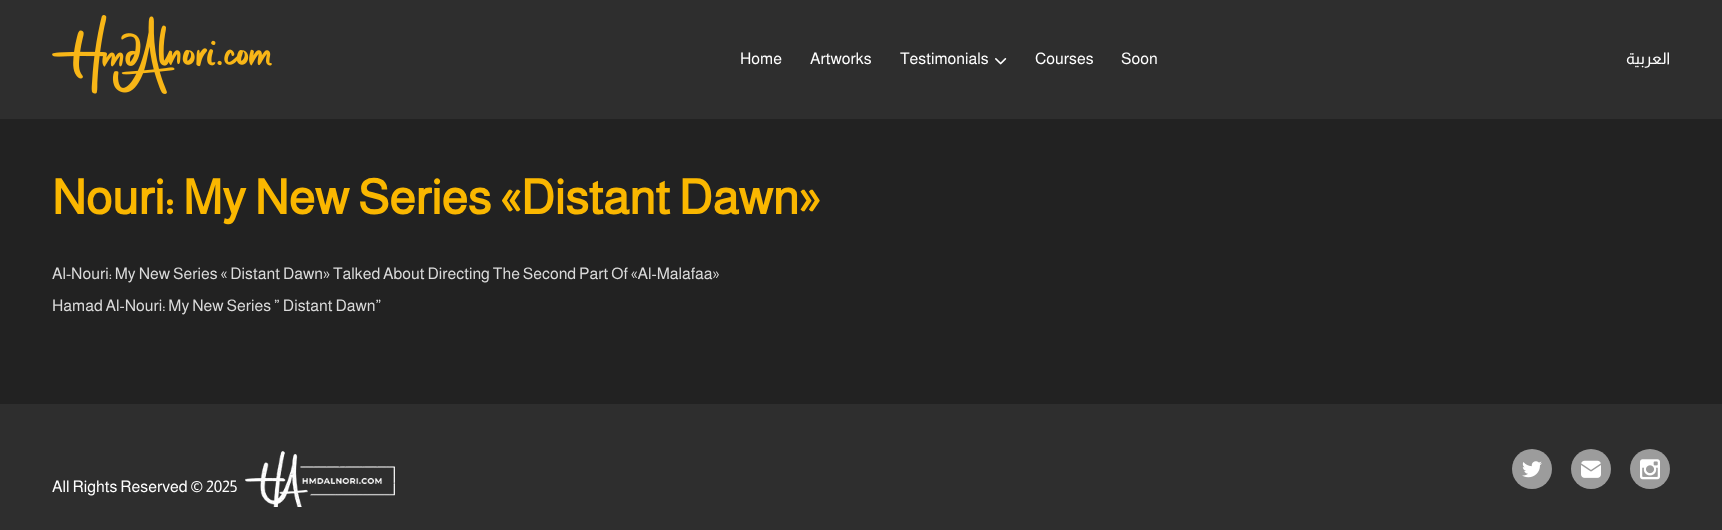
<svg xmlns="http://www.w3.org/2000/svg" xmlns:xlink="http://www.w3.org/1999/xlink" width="1722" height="530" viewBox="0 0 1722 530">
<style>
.cls-1{font:16px Almarai;fill:#ffffff}
.cls-2{font:16px Almarai;direction:rtl;fill:#ffffff}
.cls-3{font:bold 48px Almarai;fill:#fab700}
.cls-4{font:16px Almarai;fill:#dbdbdb}
</style>
<rect width="100%" height="100%" fill="#222222"/>
<rect fill="#2e2e2e" x="0" y="0" width="1722" height="119"/>
<image xlink:href="image0.png" x="52" y="15" width="220" height="79"/>
<image xlink:href="image1.png" x="995" y="58" width="12" height="7"/>
<rect fill="#2e2e2e" x="0" y="404" width="1722" height="126"/>
<image xlink:href="image2.png" x="245" y="451" width="150" height="56"/>
<circle fill="#9c9c9c" cx="1532" cy="469" r="20"/>
<image xlink:href="image3.png" x="1522" y="461" width="20" height="17"/>
<circle fill="#9c9c9c" cx="1591" cy="469" r="20"/>
<image xlink:href="image4.png" x="1581" y="460" width="20" height="18"/>
<circle fill="#9c9c9c" cx="1650" cy="469" r="20"/>
<image xlink:href="image5.png" x="1640" y="459" width="20" height="21"/>
<text class="cls-1" x="740" y="64">Home</text>
<text class="cls-1" x="810" y="64">Artworks</text>
<text class="cls-1" x="900" y="64">Testimonials</text>
<text class="cls-1" x="1035" y="64">Courses</text>
<text class="cls-1" x="1121" y="64">Soon</text>
<text class="cls-2" x="1670" y="64">العربية</text>
<text class="cls-3" x="52" y="214">Nouri: My New Series «Distant Dawn»</text>
<text class="cls-4" x="52" y="279">Al-Nouri: My New Series « Distant Dawn» Talked About Directing The Second Part Of «Al-Malafaa»</text>
<text class="cls-4" x="52" y="311">Hamad Al-Nouri: My New Series ” Distant Dawn”</text>
<text class="cls-1" x="52" y="492">All Rights Reserved © 2025</text>
</svg>
